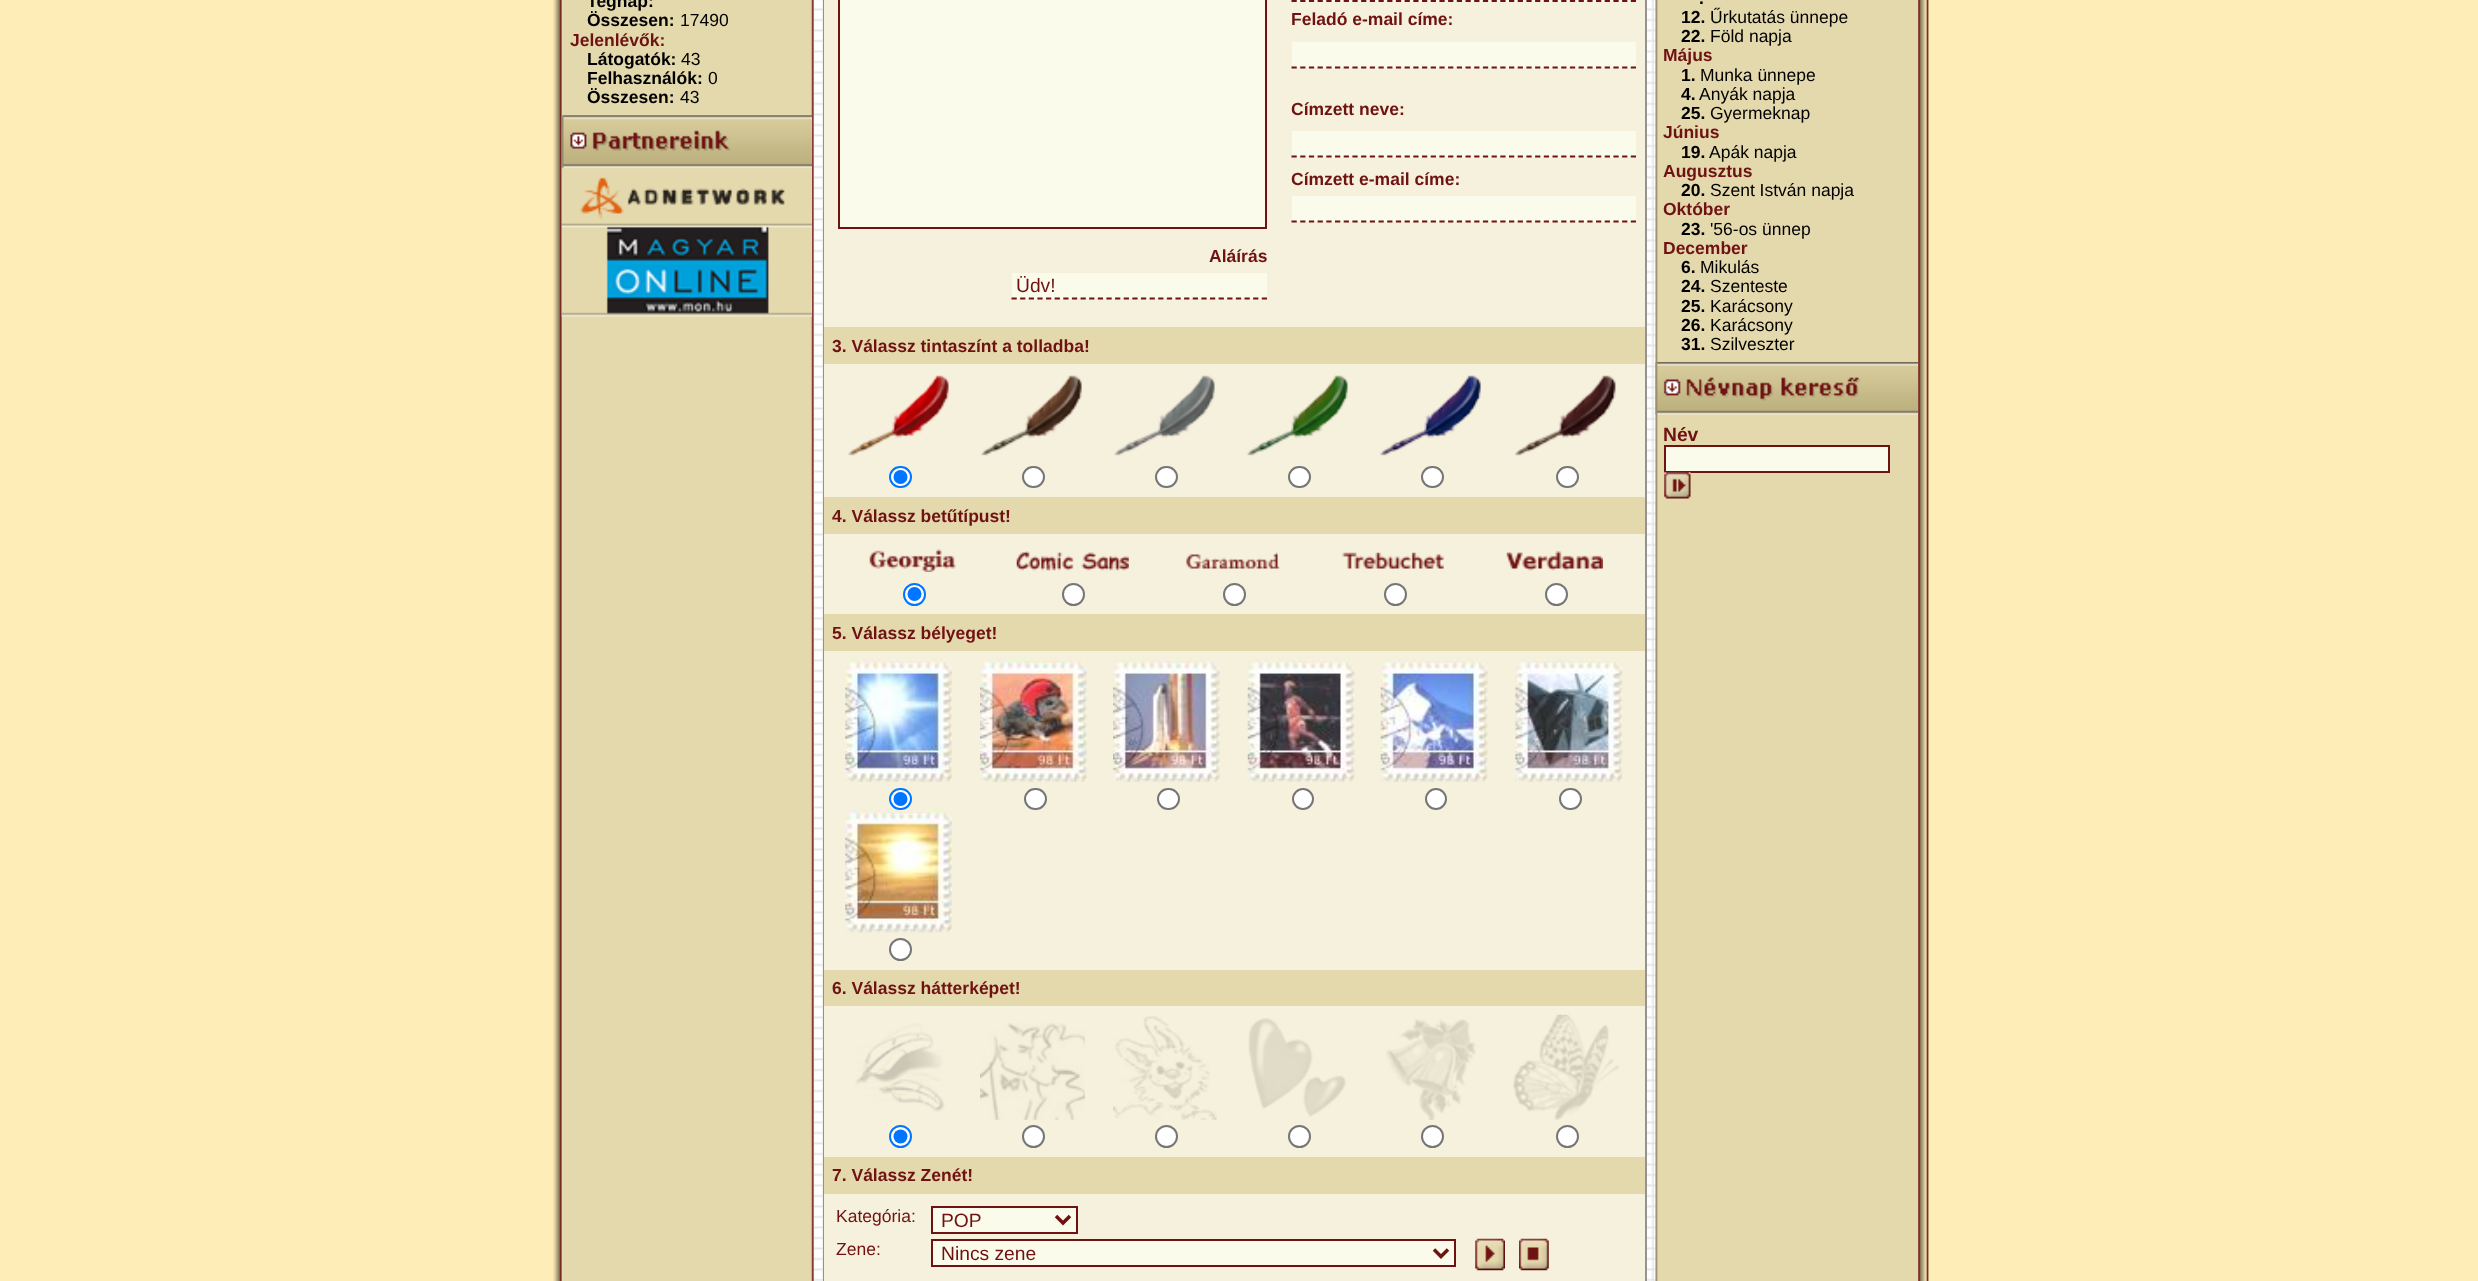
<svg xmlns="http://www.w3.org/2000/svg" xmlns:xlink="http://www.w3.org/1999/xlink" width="2478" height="1281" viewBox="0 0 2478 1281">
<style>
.cls-1{font:bold 17.5px Liberation Sans;fill:#000000}
.cls-2{font:17.5px Liberation Sans;fill:#000000}
.cls-3{font:bold 17.5px Liberation Sans;fill:#6f1212}
.cls-4{font:19.25px Liberation Sans;fill:#6f1212}
.cls-5{font:17.5px Liberation Sans;fill:#6f1212}
.cls-6{font:bold 19.25px Liberation Sans;fill:#6f1212}
</style>
<rect width="100%" height="100%" fill="#ffedb7"/>
<image xlink:href="image0.png" x="553" y="0" width="9" height="1281"/>
<image xlink:href="image1.png" x="561" y="0" width="253" height="1281"/>
<image xlink:href="image2.png" x="561" y="115" width="251" height="202"/>
<image xlink:href="image3.png" x="813" y="0" width="843" height="1281"/>
<rect fill="none" stroke="#949390" stroke-width="2" x="824" y="-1" width="822" height="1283"/>
<rect fill="#f6f1dd" x="824" y="0" width="821" height="1281"/>
<rect fill="#fbfbec" x="1292" y="0" width="344" height="2"/>
<path fill="none" stroke="#6f1212" stroke-width="1.8" stroke-dasharray="5.25 3.45" d="M1291.5 1H1636"/>
<rect fill="#fbfbec" x="1292" y="42" width="344" height="26"/>
<path fill="none" stroke="#6f1212" stroke-width="1.8" stroke-dasharray="5.25 3.45" d="M1291.5 67.5H1636"/>
<rect fill="#fbfbec" x="1292" y="131" width="344" height="27"/>
<path fill="none" stroke="#6f1212" stroke-width="1.8" stroke-dasharray="5.25 3.45" d="M1291.5 156.5H1636"/>
<rect fill="#fbfbec" x="1292" y="196" width="344" height="26"/>
<path fill="none" stroke="#6f1212" stroke-width="1.8" stroke-dasharray="5.25 3.45" d="M1291.5 221.5H1636"/>
<rect fill="#fbfbec" stroke="#6f1212" stroke-width="2" x="839" y="-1" width="427" height="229"/>
<rect fill="#fbfbec" x="1012" y="273" width="255" height="26"/>
<path fill="none" stroke="#6f1212" stroke-width="1.8" stroke-dasharray="5.25 3.38" d="M1011.5 298.5H1267"/>
<rect fill="#e4d8ad" x="824" y="327" width="821" height="37"/>
<image xlink:href="image4.png" x="848" y="375" width="101" height="81"/>
<image xlink:href="image5.png" x="981" y="375" width="101" height="81"/>
<image xlink:href="image6.png" x="1114" y="375" width="101" height="81"/>
<image xlink:href="image7.png" x="1247" y="375" width="101" height="81"/>
<image xlink:href="image8.png" x="1380" y="375" width="101" height="81"/>
<image xlink:href="image9.png" x="1515" y="375" width="101" height="81"/>
<rect fill="#ffffff" stroke="#0075ff" stroke-width="2" x="890" y="467" width="21" height="20" rx="10"/>
<circle fill="#0075ff" cx="900.5" cy="477" r="7"/>
<rect fill="#ffffff" stroke="#767676" stroke-width="2" x="1023" y="467" width="21" height="20" rx="10"/>
<rect fill="#ffffff" stroke="#767676" stroke-width="2" x="1156" y="467" width="21" height="20" rx="10"/>
<rect fill="#ffffff" stroke="#767676" stroke-width="2" x="1289" y="467" width="21" height="20" rx="10"/>
<rect fill="#ffffff" stroke="#767676" stroke-width="2" x="1422" y="467" width="21" height="20" rx="10"/>
<rect fill="#ffffff" stroke="#767676" stroke-width="2" x="1557" y="467" width="21" height="20" rx="10"/>
<rect fill="#e4d8ad" x="824" y="497" width="821" height="37"/>
<image xlink:href="image10.png" x="869" y="549" width="87" height="23"/>
<image xlink:href="image11.png" x="1016" y="551" width="113" height="20"/>
<image xlink:href="image12.png" x="1186" y="552" width="94" height="17"/>
<image xlink:href="image13.png" x="1342" y="552" width="102" height="17"/>
<image xlink:href="image14.png" x="1506" y="551" width="97" height="20"/>
<circle fill="#ffffff" stroke="#0075ff" stroke-width="2" cx="914.5" cy="594.5" r="10.5"/>
<circle fill="#0075ff" cx="914.5" cy="594" r="7"/>
<circle fill="#ffffff" stroke="#767676" stroke-width="2" cx="1073.5" cy="594.5" r="10.5"/>
<circle fill="#ffffff" stroke="#767676" stroke-width="2" cx="1234.5" cy="594.5" r="10.5"/>
<circle fill="#ffffff" stroke="#767676" stroke-width="2" cx="1395.5" cy="594.5" r="10.5"/>
<circle fill="#ffffff" stroke="#767676" stroke-width="2" cx="1556.5" cy="594.5" r="10.5"/>
<rect fill="#e4d8ad" x="824" y="614" width="821" height="37"/>
<image xlink:href="image15.png" x="845" y="659" width="107" height="123"/>
<rect fill="#ffffff" stroke="#0075ff" stroke-width="2" x="890" y="789" width="21" height="20" rx="10"/>
<circle fill="#0075ff" cx="900.5" cy="799" r="7"/>
<image xlink:href="image16.png" x="980" y="659" width="107" height="123"/>
<rect fill="#ffffff" stroke="#767676" stroke-width="2" x="1025" y="789" width="21" height="20" rx="10"/>
<image xlink:href="image17.png" x="1113" y="659" width="107" height="123"/>
<rect fill="#ffffff" stroke="#767676" stroke-width="2" x="1158" y="789" width="21" height="20" rx="10"/>
<image xlink:href="image18.png" x="1247" y="659" width="108" height="123"/>
<circle fill="#ffffff" stroke="#767676" stroke-width="2" cx="1303" cy="799" r="10"/>
<image xlink:href="image19.png" x="1380" y="659" width="108" height="123"/>
<circle fill="#ffffff" stroke="#767676" stroke-width="2" cx="1436" cy="799" r="10"/>
<image xlink:href="image20.png" x="1515" y="659" width="108" height="123"/>
<rect fill="#ffffff" stroke="#767676" stroke-width="2" x="1560" y="789" width="21" height="20" rx="10"/>
<image xlink:href="image21.png" x="845" y="810" width="107" height="123"/>
<circle fill="#ffffff" stroke="#767676" stroke-width="2" cx="900.5" cy="949.5" r="10.5"/>
<rect fill="#e4d8ad" x="824" y="970" width="821" height="36"/>
<image xlink:href="image22.png" x="855" y="1023" width="90" height="89"/>
<image xlink:href="image23.png" x="980" y="1023" width="105" height="97"/>
<image xlink:href="image24.png" x="1113" y="1016" width="104" height="104"/>
<image xlink:href="image25.png" x="1248" y="1018" width="98" height="99"/>
<image xlink:href="image26.png" x="1386" y="1019" width="90" height="101"/>
<image xlink:href="image27.png" x="1513" y="1014" width="106" height="106"/>
<circle fill="#ffffff" stroke="#0075ff" stroke-width="2" cx="900.5" cy="1136.5" r="10.5"/>
<circle fill="#0075ff" cx="900.5" cy="1136.5" r="7"/>
<circle fill="#ffffff" stroke="#767676" stroke-width="2" cx="1033.5" cy="1136.5" r="10.5"/>
<circle fill="#ffffff" stroke="#767676" stroke-width="2" cx="1166.5" cy="1136.5" r="10.5"/>
<circle fill="#ffffff" stroke="#767676" stroke-width="2" cx="1299.5" cy="1136.5" r="10.5"/>
<circle fill="#ffffff" stroke="#767676" stroke-width="2" cx="1432.5" cy="1136.5" r="10.5"/>
<circle fill="#ffffff" stroke="#767676" stroke-width="2" cx="1567.5" cy="1136.5" r="10.5"/>
<rect fill="#e4d8ad" x="824" y="1157" width="821" height="37"/>
<rect fill="#fbfbec" stroke="#6f1212" stroke-width="2" x="932" y="1207" width="145" height="26"/>
<path fill="none" stroke="#6f1212" stroke-width="3.5" d="M1056 1216L1063 1223L1070 1216"/>
<rect fill="#fbfbec" stroke="#6f1212" stroke-width="2" x="932" y="1240" width="523" height="26"/>
<path fill="none" stroke="#6f1212" stroke-width="3.5" d="M1434 1249.5L1441 1256.5L1448 1249.5"/>
<image xlink:href="image28.png" x="1475" y="1238" width="30" height="33"/>
<image xlink:href="image29.png" x="1519" y="1238" width="30" height="33"/>
<image xlink:href="image30.png" x="1655" y="0" width="263" height="1281"/>
<image xlink:href="image31.png" x="1655" y="362" width="263" height="53"/>
<rect fill="#fbfbec" stroke="#6f1212" stroke-width="2" x="1665" y="446" width="224" height="26"/>
<image xlink:href="image32.png" x="1664" y="472" width="27" height="27"/>
<image xlink:href="image33.png" x="1918" y="0" width="11" height="1281"/>
<text class="cls-1"><tspan x="587" y="7">Tegnap:</tspan><tspan x="587" y="26">Összesen:</tspan></text>
<text class="cls-2" x="680" y="26">17490</text>
<text class="cls-3" x="570" y="46">Jelenlévők:</text>
<text class="cls-1" x="587" y="65">Látogatók:</text>
<text class="cls-2" x="681" y="65">43</text>
<text class="cls-1" x="587" y="84">Felhasználók:</text>
<text class="cls-2" x="708" y="84">0</text>
<text class="cls-1" x="587" y="103">Összesen:</text>
<text class="cls-2" x="680" y="103">43</text>
<text class="cls-3" x="1291" y="25">Feladó e-mail címe:</text>
<text class="cls-3" x="1291" y="115">Címzett neve:</text>
<text class="cls-3" x="1291" y="185">Címzett e-mail címe:</text>
<text class="cls-3" x="1209" y="262">Aláírás</text>
<text class="cls-4" x="1016" y="292">Üdv!</text>
<text class="cls-3" x="832" y="352">3. Válassz tintaszínt a tolladba!</text>
<text class="cls-3" x="832" y="522">4. Válassz betűtípust!</text>
<text class="cls-3" x="832" y="639">5. Válassz bélyeget!</text>
<text class="cls-3" x="832" y="994">6. Válassz hátterképet!</text>
<text class="cls-3" x="832" y="1181">7. Válassz Zenét!</text>
<text class="cls-5" x="836" y="1222">Kategória:</text>
<text class="cls-4" x="941" y="1227">POP</text>
<text class="cls-5" x="836" y="1255">Zene:</text>
<text class="cls-4" x="941" y="1260">Nincs zene</text>
<text class="cls-1" x="1699" y="4">.</text>
<text class="cls-1" x="1681" y="23">12.</text>
<text class="cls-2" x="1710" y="23">Űrkutatás ünnepe</text>
<text class="cls-1" x="1681" y="42">22.</text>
<text class="cls-2" x="1710" y="42">Föld napja</text>
<text class="cls-3" x="1663" y="61">Május</text>
<text class="cls-1" x="1681" y="81">1.</text>
<text class="cls-2" x="1700" y="81">Munka ünnepe</text>
<text class="cls-1" x="1681" y="100">4.</text>
<text class="cls-2" x="1699" y="100">Anyák napja</text>
<text class="cls-1" x="1681" y="119">25.</text>
<text class="cls-2" x="1710" y="119">Gyermeknap</text>
<text class="cls-3" x="1663" y="138">Június</text>
<text class="cls-1" x="1681" y="158">19.</text>
<text class="cls-2" x="1709" y="158">Apák napja</text>
<text class="cls-3" x="1663" y="177">Augusztus</text>
<text class="cls-1" x="1681" y="196">20.</text>
<text class="cls-2" x="1710" y="196">Szent István napja</text>
<text class="cls-3" x="1663" y="215">Október</text>
<text class="cls-1" x="1681" y="235">23.</text>
<text class="cls-2" x="1710" y="235">'56-os ünnep</text>
<text class="cls-3" x="1663" y="254">December</text>
<text class="cls-1" x="1681" y="273">6.</text>
<text class="cls-2" x="1700" y="273">Mikulás</text>
<text class="cls-1" x="1681" y="292">24.</text>
<text class="cls-2" x="1710" y="292">Szenteste</text>
<text class="cls-1" x="1681" y="312">25.</text>
<text class="cls-2" x="1710" y="312">Karácsony</text>
<text class="cls-1" x="1681" y="331">26.</text>
<text class="cls-2" x="1710" y="331">Karácsony</text>
<text class="cls-1" x="1681" y="350">31.</text>
<text class="cls-2" x="1710" y="350">Szilveszter</text>
<text class="cls-6" x="1663" y="441">Név</text>
</svg>
